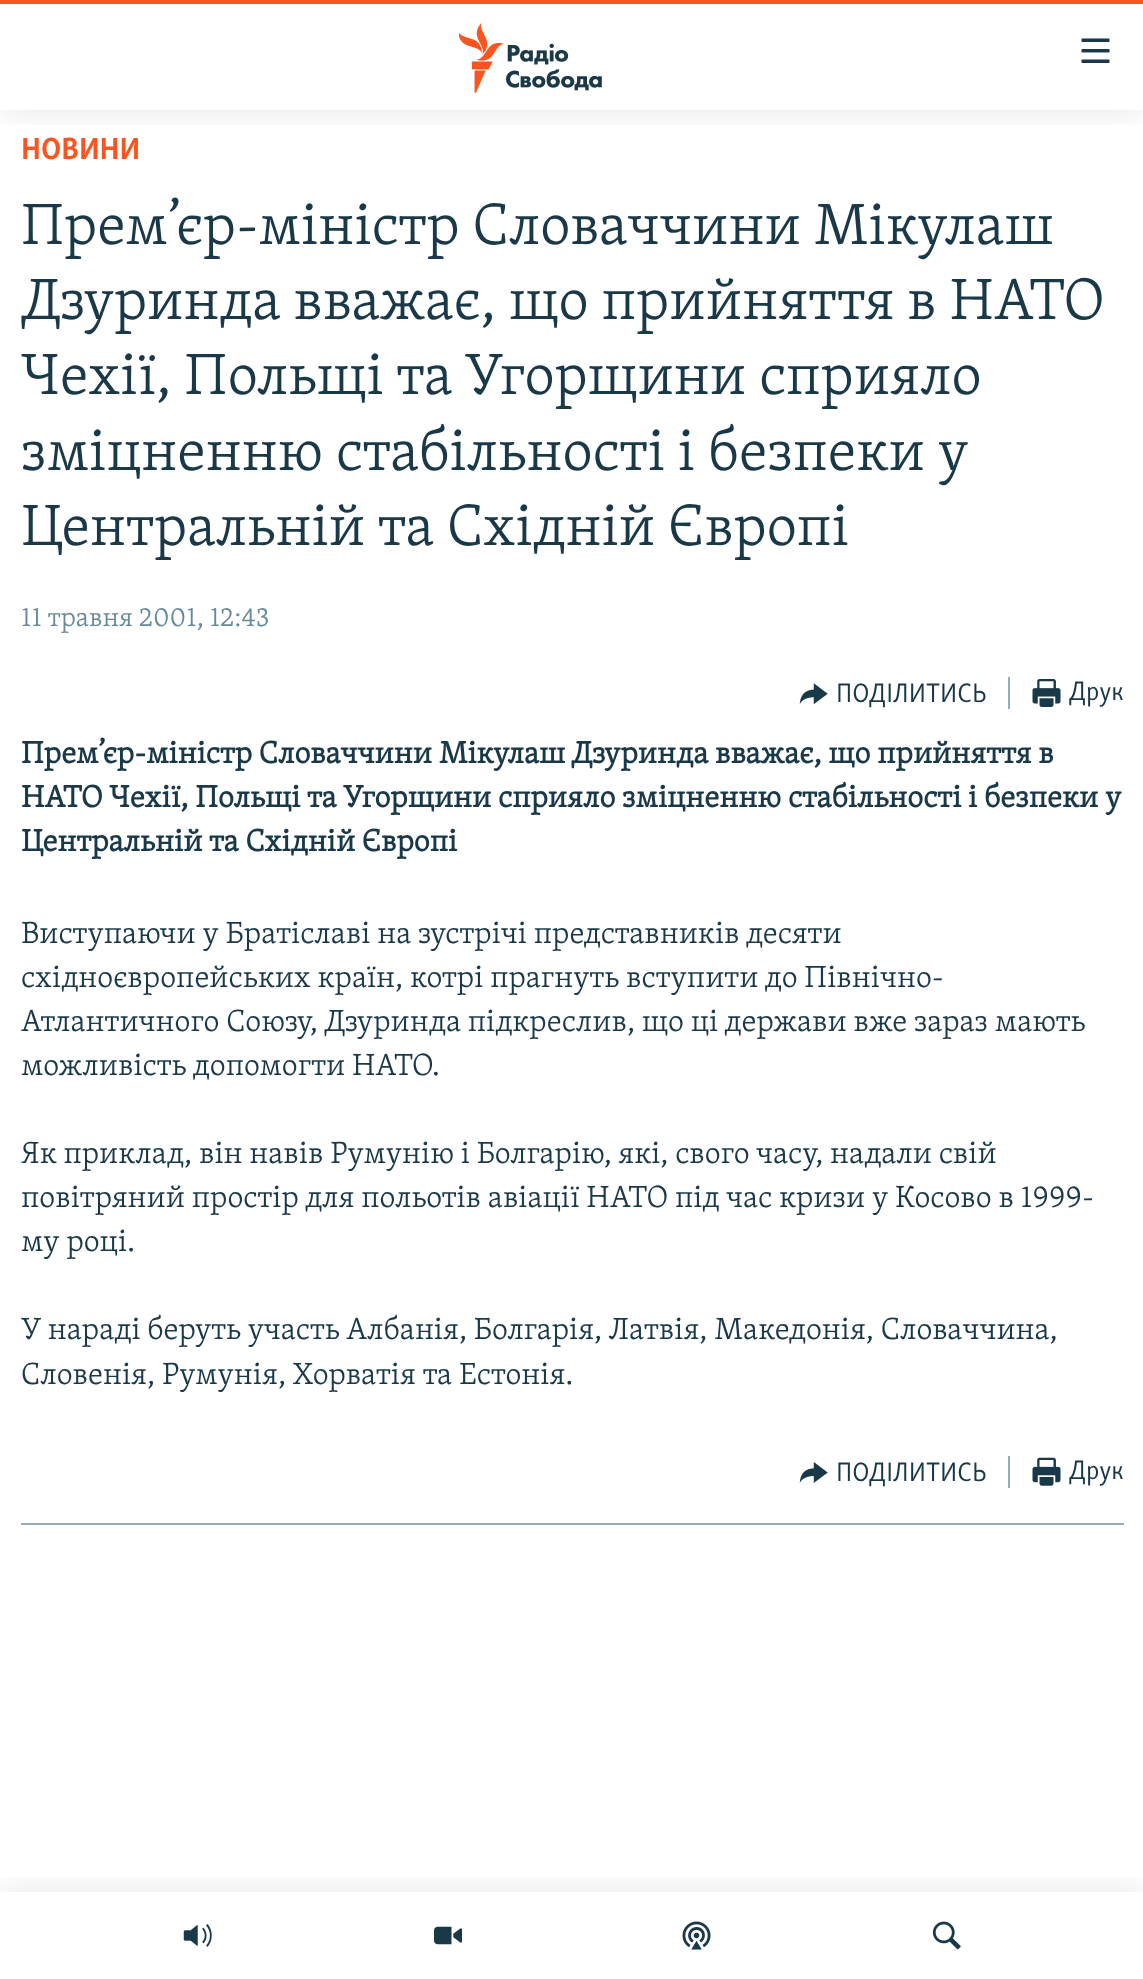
<svg xmlns="http://www.w3.org/2000/svg" xmlns:xlink="http://www.w3.org/1999/xlink" width="1143" height="1979" viewBox="0 0 1143 1979">
<style>
.cls-1{font:bold 31.5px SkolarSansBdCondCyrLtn;fill:#fa5420}
.cls-2{font:300 59.8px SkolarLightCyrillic;fill:#1a3948}
.cls-3{font:300 27.5px SkolarLightCyrillic;fill:#678a9b}
.cls-4{font:27.5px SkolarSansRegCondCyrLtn;fill:#1a3948}
.cls-5{font:bold 31.5px SkolarLightCyrillic;fill:#1a3948}
.cls-6{font:300 31.5px SkolarLightCyrillic;fill:#1a3948}
</style>
<defs>
<clipPath id="clip1"><rect x="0" y="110" width="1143" height="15"/></clipPath>
<clipPath id="clip2"><rect x="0" y="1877" width="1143" height="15"/></clipPath>
</defs>
<rect width="100%" height="100%" fill="#ffffff"/>
<g clip-path="url(#clip1)">
<rect fill="#000000" fill-opacity="0.1" filter="blur(17.5px)" x="0" y="0" width="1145" height="110"/>
</g>
<rect fill="#fa5420" x="0" y="0" width="1143" height="4"/>
<image xlink:href="image0.png" x="459" y="23" width="143" height="70"/>
<image xlink:href="image1.png" x="1081" y="38" width="29" height="25"/>
<g clip-path="url(#clip2)">
<rect fill="#000000" fill-opacity="0.1" filter="blur(17.5px)" x="0" y="1892" width="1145" height="87"/>
</g>
<image xlink:href="image2.png" x="183" y="1924" width="29" height="23"/>
<image xlink:href="image3.png" x="434" y="1926" width="28" height="19"/>
<image xlink:href="image4.png" x="682" y="1921" width="29" height="29"/>
<image xlink:href="image5.png" x="932" y="1921" width="29" height="29"/>
<image xlink:href="image6.png" x="799" y="683" width="29" height="22"/>
<rect fill="#95adb9" x="1008" y="677" width="2" height="32"/>
<image xlink:href="image7.png" x="1032" y="679" width="29" height="28"/>
<rect fill="#95adb9" x="21" y="1523" width="1103" height="2"/>
<image xlink:href="image8.png" x="799" y="1462" width="29" height="21"/>
<rect fill="#95adb9" x="1008" y="1456" width="2" height="32"/>
<image xlink:href="image9.png" x="1032" y="1457" width="29" height="29"/>
<text class="cls-1" x="21" y="159">НОВИНИ</text>
<text class="cls-2"><tspan x="21" y="244">Прем’єр-міністр Словаччини Мікулаш</tspan><tspan x="21" y="319">Дзуринда вважає, що прийняття в НАТО</tspan><tspan x="21" y="394">Чехії, Польщі та Угорщини сприяло</tspan><tspan x="21" y="470">зміцненню стабільності і безпеки у</tspan><tspan x="21" y="545">Центральній та Східній Європі</tspan></text>
<text class="cls-3" x="21" y="626">11 травня 2001, 12:43</text>
<text class="cls-4" x="836" y="702">ПОДІЛИТИСЬ</text>
<text class="cls-4" x="1069" y="700">Друк</text>
<text class="cls-5"><tspan x="21" y="763">Прем’єр-міністр Словаччини Мікулаш Дзуринда вважає, що прийняття в</tspan><tspan x="21" y="807">НАТО Чехії, Польщі та Угорщини сприяло зміцненню стабільності і безпеки у</tspan><tspan x="21" y="851">Центральній та Східній Європі</tspan></text>
<text class="cls-6"><tspan x="21" y="943">Виступаючи у Братіславі на зустрічі представників десяти</tspan><tspan x="21" y="987">східноєвропейських країн, котрі прагнуть вступити до Північно-</tspan><tspan x="21" y="1031">Атлантичного Союзу, Дзуринда підкреслив, що ці держави вже зараз мають</tspan><tspan x="21" y="1075">можливість допомогти НАТО.</tspan></text>
<text class="cls-6"><tspan x="21" y="1163">Як приклад, він навів Румунію і Болгарію, які, свого часу, надали свій</tspan><tspan x="21" y="1207">повітряний простір для польотів авіації НАТО під час кризи у Косово в 1999-</tspan><tspan x="21" y="1251">му році.</tspan></text>
<text class="cls-6"><tspan x="21" y="1339">У нараді беруть участь Албанія, Болгарія, Латвія, Македонія, Словаччина,</tspan><tspan x="21" y="1384">Словенія, Румунія, Хорватія та Естонія.</tspan></text>
<text class="cls-4" x="836" y="1481">ПОДІЛИТИСЬ</text>
<text class="cls-4" x="1069" y="1479">Друк</text>
</svg>
